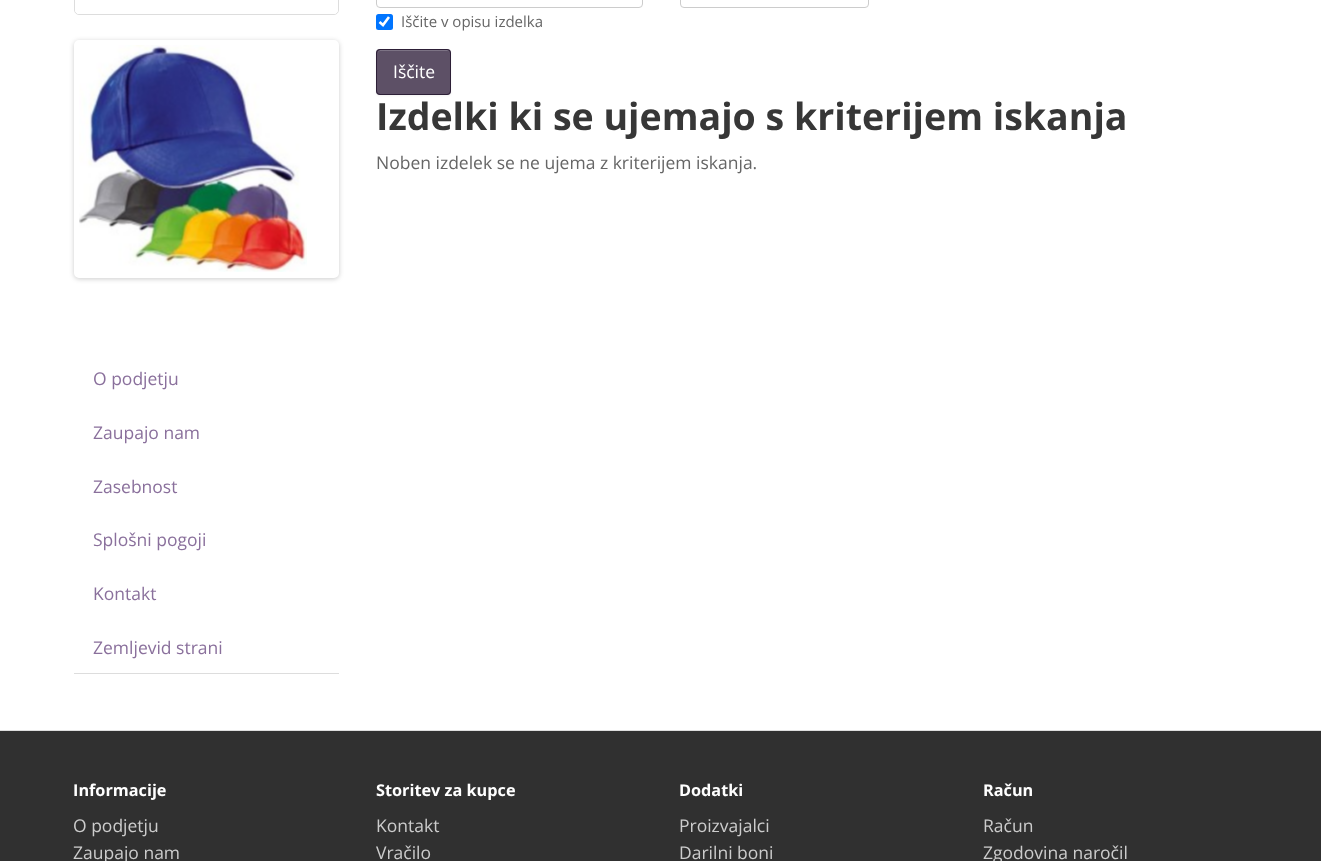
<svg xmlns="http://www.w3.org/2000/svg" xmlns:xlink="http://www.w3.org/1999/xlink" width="1321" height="861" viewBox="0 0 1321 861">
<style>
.cls-1{font:15px Open Sans;fill:#666666}
.cls-2{font:17.5px Open Sans;fill:#ffffff}
.cls-3{font:bold 37.5px Open Sans;fill:#373737}
.cls-4{font:17.5px Open Sans;fill:#666666}
.cls-5{font:17.5px Open Sans;fill:#8a709c}
.cls-6{font:bold 16.25px Open Sans;fill:#ffffff}
.cls-7{font:17.5px Open Sans;fill:#cccccc}
</style>
<rect width="100%" height="100%" fill="#ffffff"/>
<rect fill="none" stroke="#cccccc" x="376.5" y="-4.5" width="266" height="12" rx="3.5"/>
<rect fill="none" stroke="#cccccc" x="680.5" y="-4.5" width="188" height="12" rx="3.5"/>
<rect fill="#0075ff" x="376" y="14" width="17" height="16" rx="2.5"/>
<path fill="none" stroke="#ffffff" stroke-width="2.6" d="M379.5 22L383 25L389 17"/>
<rect fill="#000000" fill-opacity="0.05" filter="blur(1px)" x="376" y="50" width="75" height="46" rx="4"/>
<rect fill="#5d5066" x="376" y="49" width="75" height="46" rx="4"/>
<path fill="#7d7385" d="M380 51H448C449 51 450 52 450 54C450 47 442 50 436 50H392C386 50 378 47 378 54C378 52 379 51 380 51Z"/>
<rect fill="none" stroke="#2d1f37" x="376.5" y="49.5" width="74" height="45" rx="3.5"/>
<rect fill="none" stroke="#dddddd" x="74.5" y="-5.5" width="264" height="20" rx="4.5"/>
<path fill="#ffffff" d="M75-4H338V10C338 12 336 14 334 14H79C77 14 75 12 75 10Z"/>
<rect fill="#000000" fill-opacity="0.2" filter="blur(2.5px)" x="74" y="41" width="265" height="238" rx="5"/>
<rect fill="#ffffff" stroke="#ffffff" stroke-width="5" x="76.5" y="42.5" width="260" height="233" rx="2.5"/>
<image xlink:href="image0.png" x="79" y="45" width="228" height="227"/>
<rect fill="#dddddd" x="74" y="673" width="265" height="1"/>
<rect fill="#303030" x="0" y="731" width="1321" height="130"/>
<rect fill="#dddddd" x="0" y="730" width="1321" height="1"/>
<text class="cls-1" x="401" y="27">Iščite v opisu izdelka</text>
<text class="cls-2" x="393" y="78">Iščite</text>
<text class="cls-3" x="376" y="130">Izdelki ki se ujemajo s kriterijem iskanja</text>
<text class="cls-4" x="376" y="169">Noben izdelek se ne ujema z kriterijem iskanja.</text>
<text class="cls-5" x="93" y="385">O podjetju</text>
<text class="cls-5" x="93" y="439">Zaupajo nam</text>
<text class="cls-5" x="93" y="493">Zasebnost</text>
<text class="cls-5" x="93" y="546">Splošni pogoji</text>
<text class="cls-5" x="93" y="600">Kontakt</text>
<text class="cls-5" x="93" y="654">Zemljevid strani</text>
<text class="cls-6" x="73" y="796">Informacije</text>
<text class="cls-7"><tspan x="73" y="832">O podjetju</tspan><tspan x="73" y="859">Zaupajo nam</tspan></text>
<text class="cls-6" x="376" y="796">Storitev za kupce</text>
<text class="cls-7"><tspan x="376" y="832">Kontakt</tspan><tspan x="376" y="859">Vračilo</tspan></text>
<text class="cls-6" x="679" y="796">Dodatki</text>
<text class="cls-7"><tspan x="679" y="832">Proizvajalci</tspan><tspan x="679" y="859">Darilni boni</tspan></text>
<text class="cls-6" x="983" y="796">Račun</text>
<text class="cls-7"><tspan x="983" y="832">Račun</tspan><tspan x="983" y="859">Zgodovina naročil</tspan></text>
</svg>
